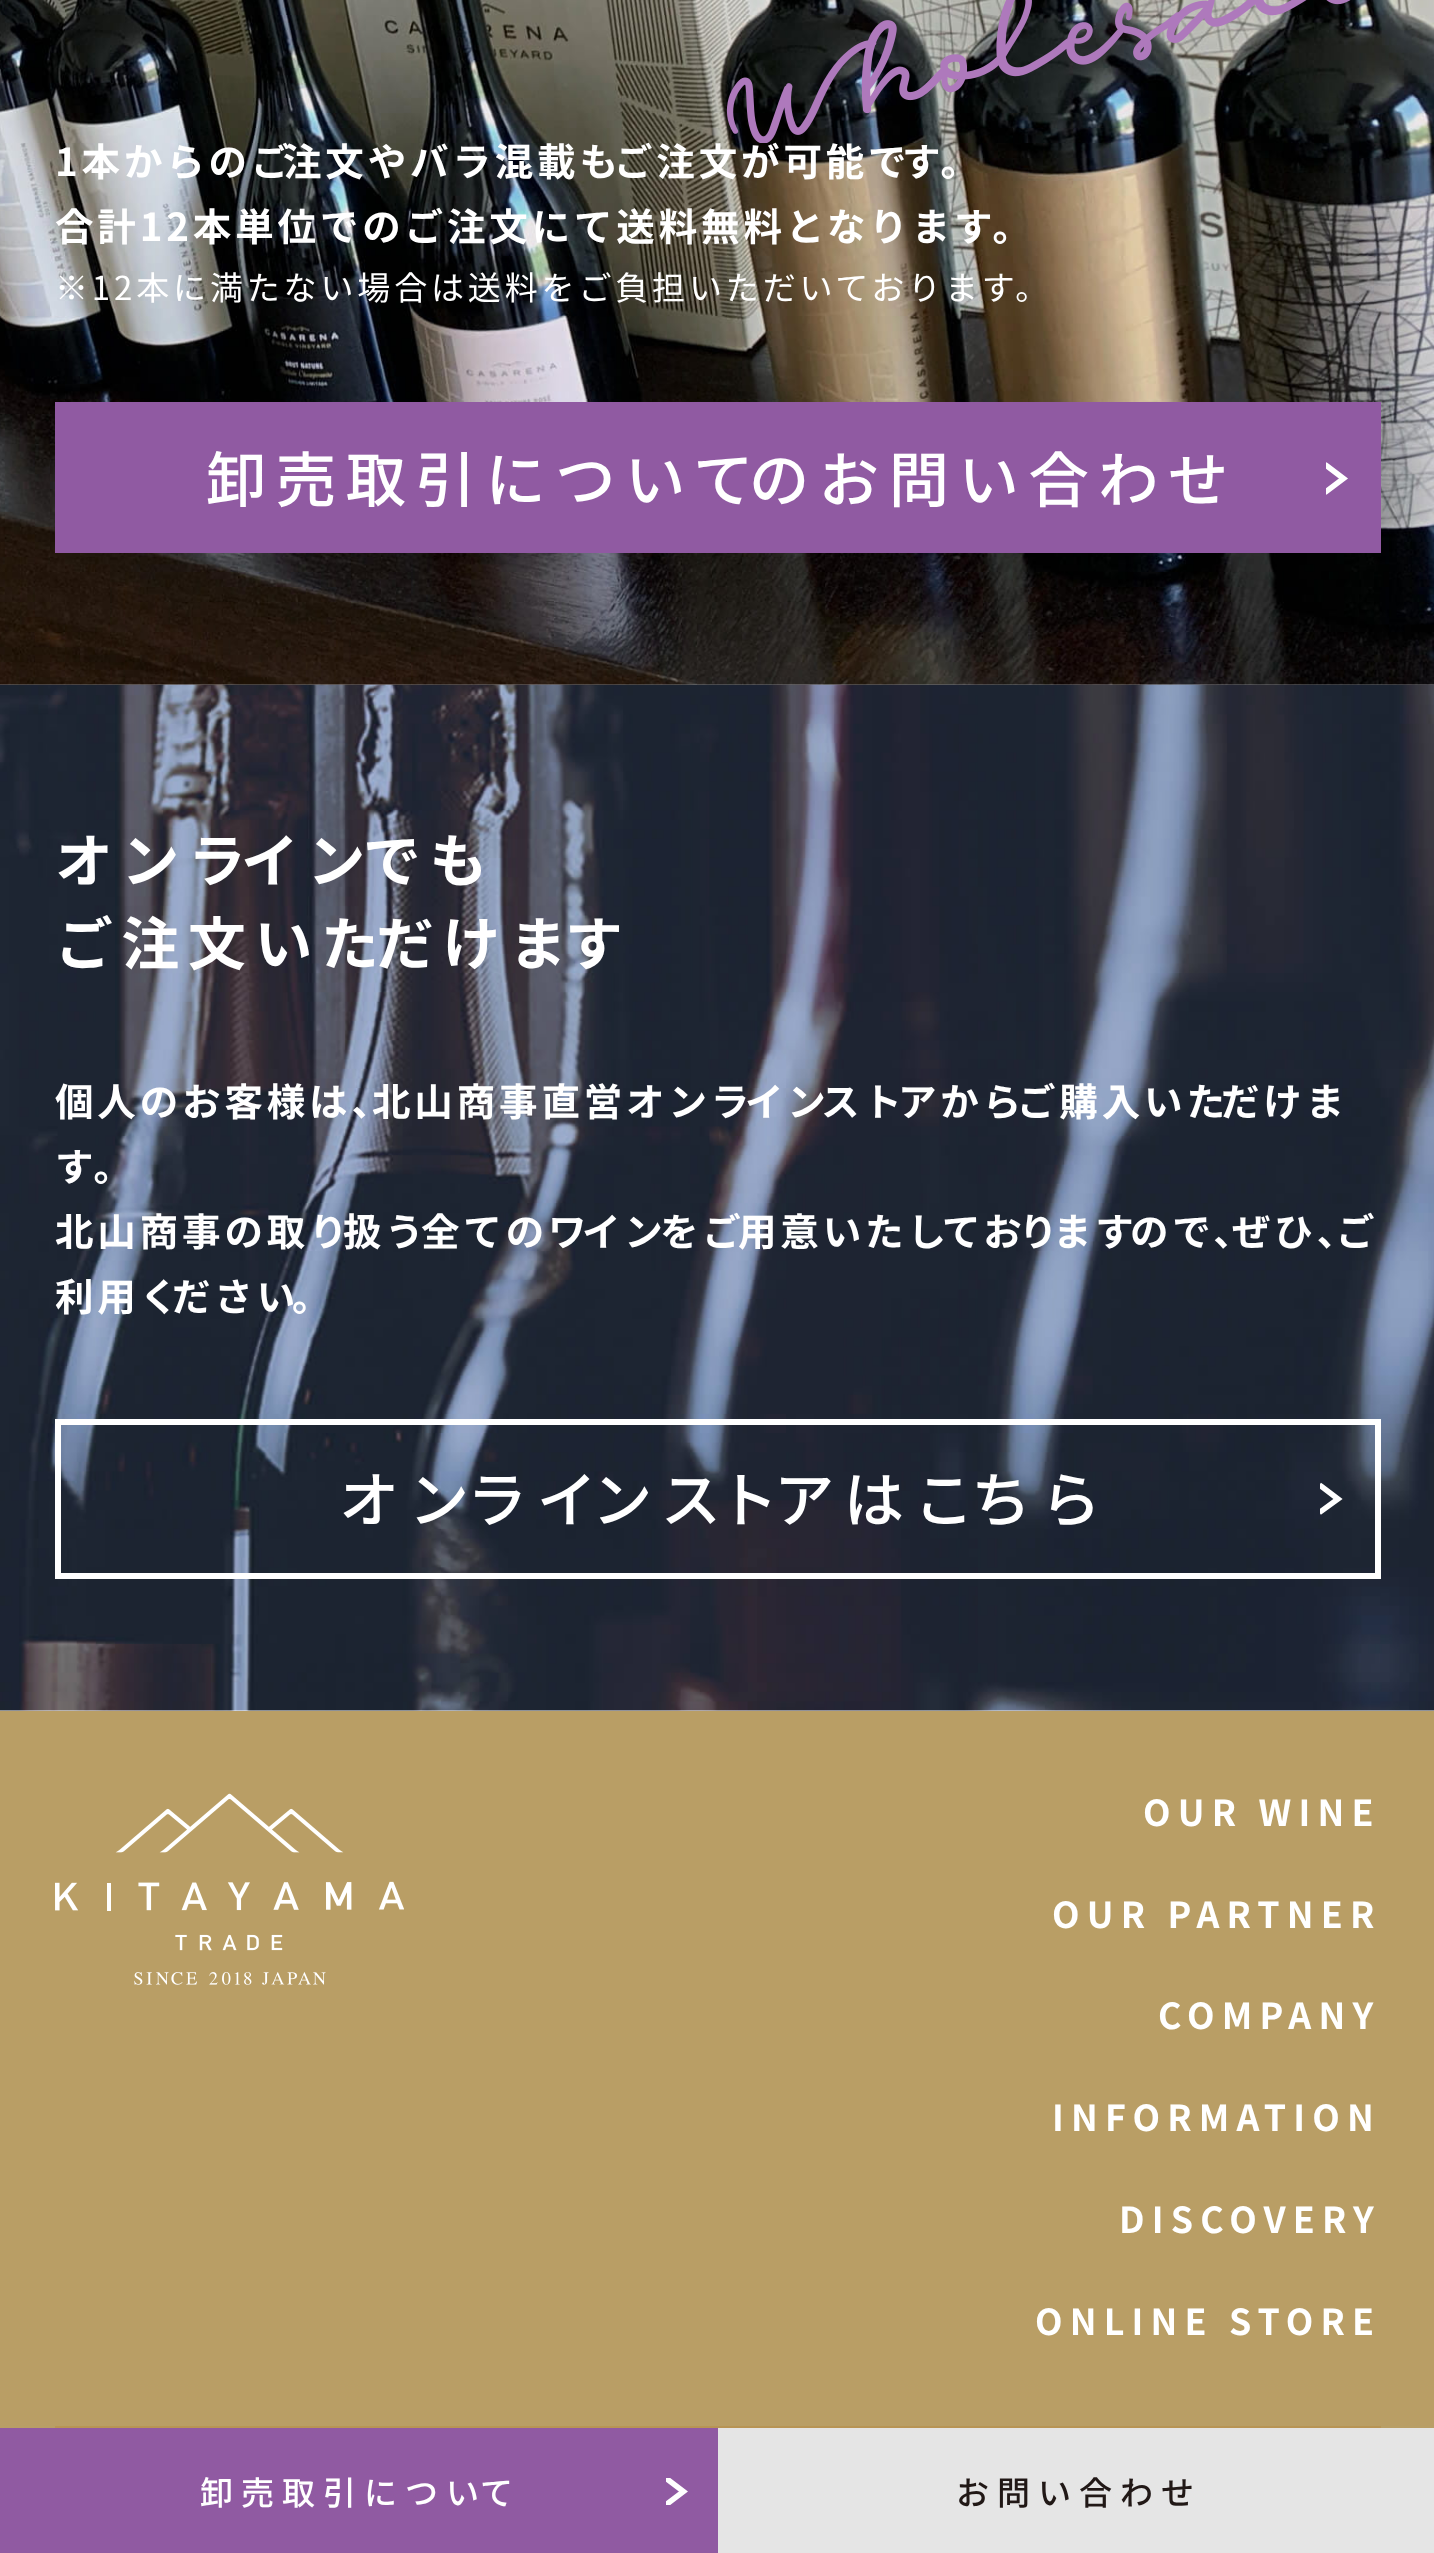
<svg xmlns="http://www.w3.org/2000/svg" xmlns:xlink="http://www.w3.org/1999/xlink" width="1434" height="2553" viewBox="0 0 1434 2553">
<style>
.cls-1{font:bold 38.5px Noto Sans JP;letter-spacing:3.85px;fill:#ffffff}
.cls-2{font:bold 38.5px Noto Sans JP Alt;letter-spacing:3.85px;fill:#ffffff}
.cls-3{font:33px Noto Sans JP Alt;letter-spacing:3.85px;fill:#ffffff}
.cls-4{font:500 60.25px Noto Sans JP;letter-spacing:9.6px;fill:#ffffff}
.cls-5{font:bold 57.75px Noto Sans JP;letter-spacing:8.75px;fill:#ffffff}
.cls-6{font:bold 35.75px Noto Sans JP;letter-spacing:7.2px;fill:#ffffff}
.cls-7{font:500 33px Noto Sans JP;letter-spacing:8px;fill:#ffffff}
.cls-8{font:500 33px Noto Sans JP;letter-spacing:8px;fill:#211816}
</style>
<defs>
<clipPath id="clip1"><rect x="1326" y="462" width="24" height="33"/></clipPath>
<clipPath id="clip2"><rect x="1320" y="1482" width="25" height="33"/></clipPath>
<clipPath id="clip3"><rect x="666" y="2478" width="22" height="27"/></clipPath>
</defs>
<rect width="100%" height="100%" fill="#ffffff"/>
<image xlink:href="image0.png" x="0" y="0" width="1434" height="685"/>
<image xlink:href="image1.png" x="726" y="0" width="625" height="143"/>
<rect fill="#905aa2" x="55" y="402" width="1326" height="151"/>
<g clip-path="url(#clip1)">
<path fill="none" stroke="#ffffff" stroke-width="5.5" stroke-linecap="square" d="M1327 466L1343.5 478.5L1327 491"/>
</g>
<image xlink:href="image2.png" x="0" y="684" width="1434" height="1027"/>
<rect fill="none" stroke="#ffffff" stroke-width="6" x="58" y="1422" width="1320" height="154"/>
<g clip-path="url(#clip2)">
<path fill="none" stroke="#ffffff" stroke-width="5.5" stroke-linecap="square" d="M1321.5 1486.5L1338 1499L1321.5 1511"/>
</g>
<rect fill="#b99e65" x="0" y="1711" width="1434" height="717"/>
<image xlink:href="image3.png" x="55" y="1793" width="349" height="192"/>
<rect fill="#b89454" x="55" y="2426" width="1326" height="2"/>
<rect fill="#905aa2" x="0" y="2428" width="718" height="125"/>
<g clip-path="url(#clip3)">
<path fill="none" stroke="#ffffff" stroke-width="5.5" stroke-linecap="square" d="M667 2479L683.5 2491.5L667 2504"/>
</g>
<rect fill="#e5e5e5" x="718" y="2428" width="716" height="125"/>
<text class="cls-1" x="55" y="176">1本からのご</text>
<text class="cls-1" x="283" y="176">注文やバラ混載も</text>
<text class="cls-1" x="614" y="176">ご注文が可能で</text>
<text class="cls-1" x="902" y="176">す。</text>
<text class="cls-2" x="55" y="241">合計12本単位でのご注文にて送料無料となります。</text>
<text class="cls-3" x="55" y="300">※12本に満たない場合は送料をご負担いただいております。</text>
<text class="cls-4" x="206" y="502">卸売取引について</text>
<text class="cls-4" x="749" y="502">のお問い合わせ</text>
<text class="cls-5" x="55" y="882">オンラ</text>
<text class="cls-5" x="241" y="882">イン</text>
<text class="cls-5" x="363" y="882">でも</text>
<text class="cls-5" x="55" y="965">ご注文いた</text>
<text class="cls-5" x="376" y="965">だけま</text>
<text class="cls-5" x="565" y="965">す</text>
<text class="cls-1" x="55" y="1116">個人のお客様は、</text>
<text class="cls-1" x="372" y="1116">北山商事直営オンラ</text>
<text class="cls-1" x="745" y="1116">イン</text>
<text class="cls-1" x="821" y="1116">スト</text>
<text class="cls-1" x="898" y="1116">アから</text>
<text class="cls-1" x="1017" y="1116">ご購入いた</text>
<text class="cls-1" x="1221" y="1116">だけま</text>
<text class="cls-1"><tspan x="55" y="1181">す。</tspan><tspan x="55" y="1246">北山商事の取り</tspan></text>
<text class="cls-1" x="343" y="1246">扱う</text>
<text class="cls-1" x="421" y="1246">全てのワ</text>
<text class="cls-1" x="582" y="1246">イン</text>
<text class="cls-1" x="660" y="1246">をご</text>
<text class="cls-1" x="738" y="1246">用意いたし</text>
<text class="cls-1" x="942" y="1246">てお</text>
<text class="cls-1" x="1019" y="1246">り</text>
<text class="cls-1" x="1053" y="1246">ます</text>
<text class="cls-1" x="1130" y="1246">ので、</text>
<text class="cls-1" x="1232" y="1246">ぜひ、</text>
<text class="cls-1" x="1336" y="1246">ご</text>
<text class="cls-1" x="55" y="1311">利用く</text>
<text class="cls-1" x="172" y="1311">ださい</text>
<text class="cls-1" x="292" y="1311">。</text>
<text class="cls-4" x="339" y="1522">オン</text>
<text class="cls-4" x="467" y="1522">ライ</text>
<text class="cls-4" x="592" y="1522">ンス</text>
<text class="cls-4" x="718" y="1522">ト</text>
<text class="cls-4" x="774" y="1522">アはこ</text>
<text class="cls-4" x="971" y="1522">ちら</text>
<text class="cls-6" x="1143" y="1826">OUR WINE</text>
<text class="cls-6" x="1052" y="1928">OUR PARTNER</text>
<text class="cls-6" x="1158" y="2029">COMPANY</text>
<text class="cls-6" x="1052" y="2131">INFORMATION</text>
<text class="cls-6" x="1119" y="2233">DISCOVERY</text>
<text class="cls-6" x="1035" y="2335">ONLINE STORE</text>
<text class="cls-7" x="200" y="2505">卸売取引につい</text>
<text class="cls-7" x="480" y="2505">て</text>
<text class="cls-8" x="956" y="2505">お問い合わせ</text>
</svg>
